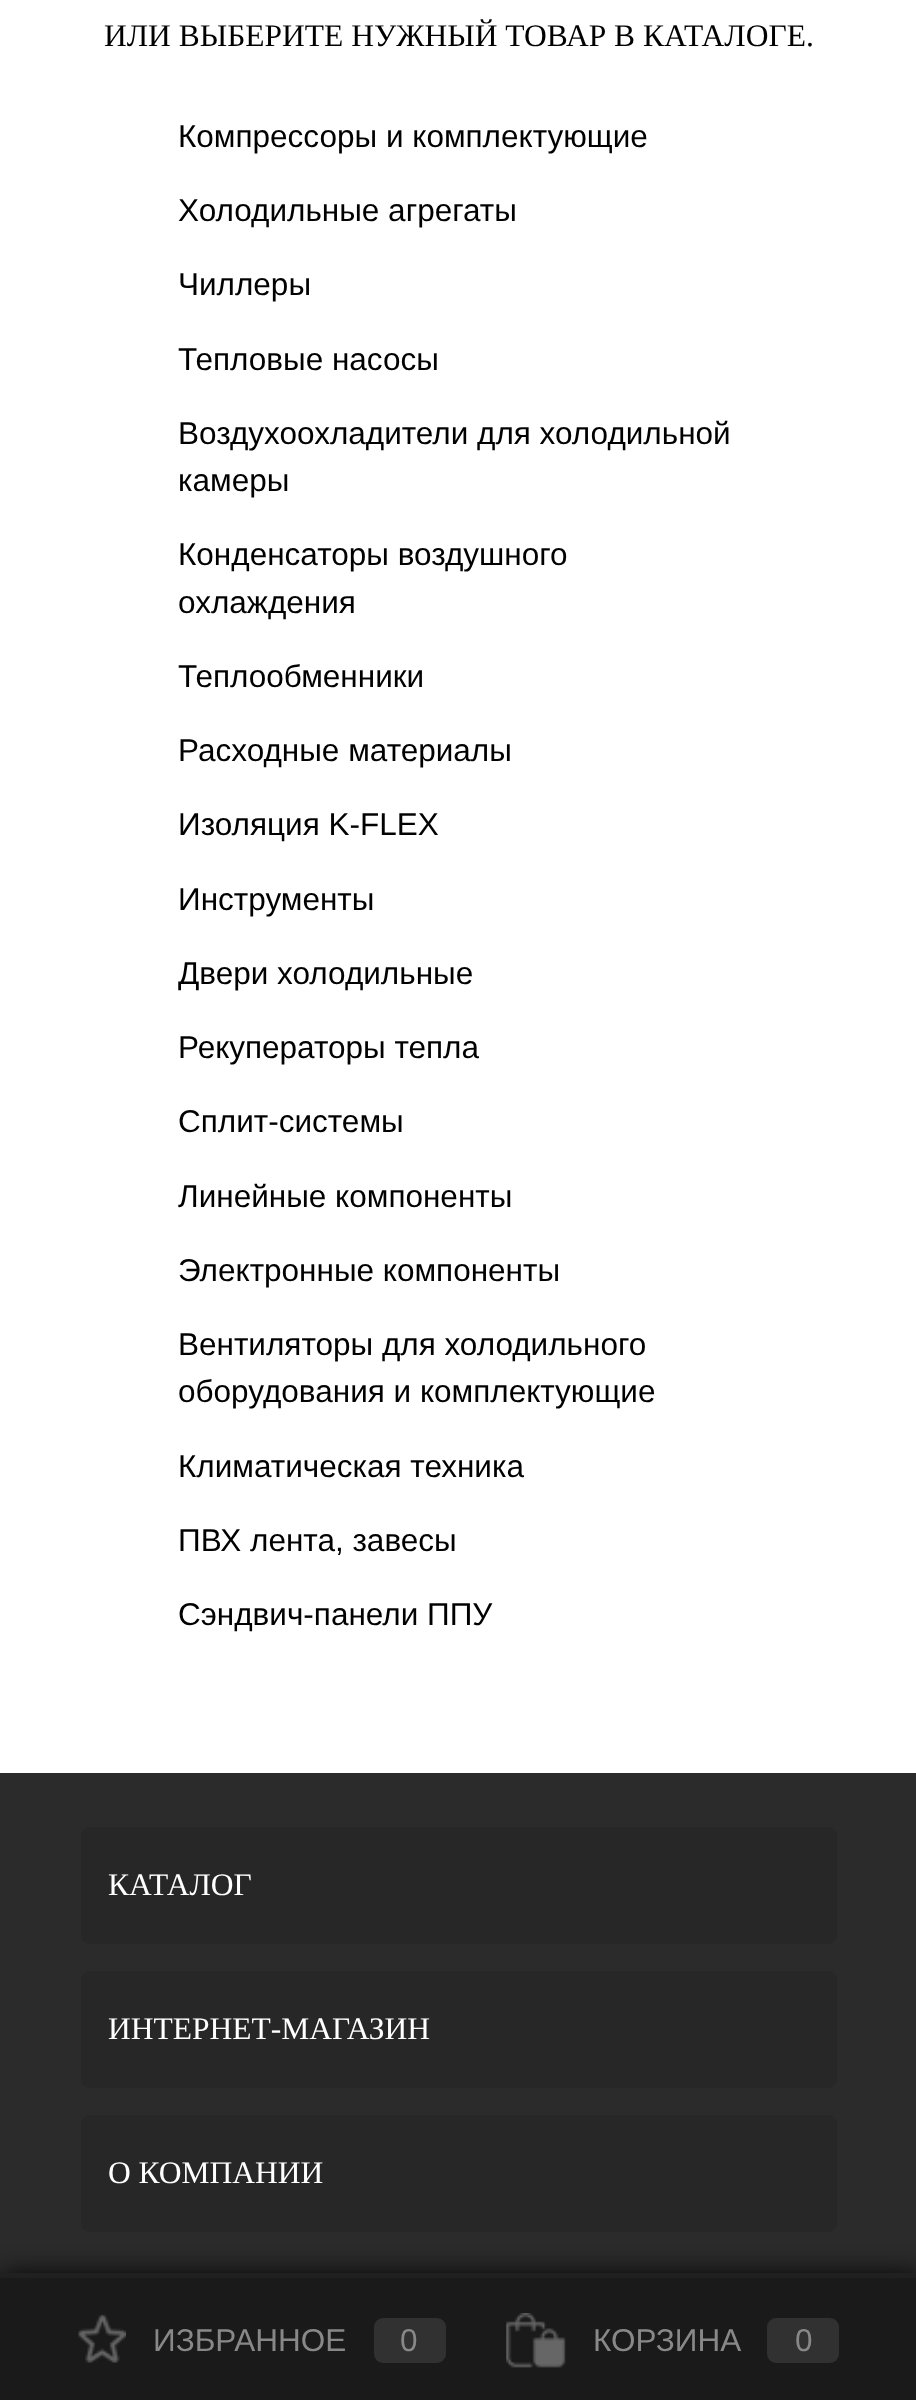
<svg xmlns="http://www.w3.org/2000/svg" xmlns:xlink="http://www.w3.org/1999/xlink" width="916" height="2400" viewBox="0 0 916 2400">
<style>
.cls-1{font:31.5px Liberation Serif;fill:#000000}
.cls-2{font:31.5px Liberation Sans;fill:#000000}
.cls-3{font:31.5px Liberation Serif;fill:#ffffff}
.cls-4{font:31.5px Liberation Sans;fill:#888888}
</style>
<rect width="100%" height="100%" fill="#ffffff"/>
<rect fill="#2b2b2b" x="0" y="1773" width="916" height="500"/>
<rect fill="#272727" x="81" y="1827" width="756" height="117" rx="9"/>
<rect fill="#272727" x="81" y="1971" width="756" height="117" rx="9"/>
<rect fill="#272727" x="81" y="2115" width="756" height="117" rx="9"/>
<rect fill="#000000" filter="blur(13.5px)" x="2" y="2275" width="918" height="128"/>
<rect fill="#1a1a1a" x="0" y="2278" width="916" height="122"/>
<rect fill="#202020" x="0" y="2273" width="916" height="5"/>
<image xlink:href="image0.png" x="78" y="2314" width="48" height="49"/>
<rect fill="#313131" x="374" y="2318" width="72" height="45" rx="9"/>
<image xlink:href="image1.png" x="506" y="2313" width="60" height="55"/>
<rect fill="#313131" x="767" y="2318" width="72" height="45" rx="9"/>
<text class="cls-1" x="104" y="46">ИЛИ ВЫБЕРИТЕ НУЖНЫЙ ТОВАР В КАТАЛОГЕ.</text>
<text class="cls-2" x="178" y="147">Компрессоры и комплектующие</text>
<text class="cls-2" x="178" y="221">Холодильные агрегаты</text>
<text class="cls-2" x="178" y="295">Чиллеры</text>
<text class="cls-2" x="178" y="370">Тепловые насосы</text>
<text class="cls-2"><tspan x="178" y="444">Воздухоохладители для холодильной</tspan><tspan x="178" y="491">камеры</tspan></text>
<text class="cls-2"><tspan x="178" y="565">Конденсаторы воздушного</tspan><tspan x="178" y="613">охлаждения</tspan></text>
<text class="cls-2" x="178" y="687">Теплообменники</text>
<text class="cls-2" x="178" y="761">Расходные материалы</text>
<text class="cls-2" x="178" y="835">Изоляция K-FLEX</text>
<text class="cls-2" x="178" y="910">Инструменты</text>
<text class="cls-2" x="178" y="984">Двери холодильные</text>
<text class="cls-2" x="178" y="1058">Рекуператоры тепла</text>
<text class="cls-2" x="178" y="1132">Сплит-системы</text>
<text class="cls-2" x="178" y="1207">Линейные компоненты</text>
<text class="cls-2" x="178" y="1281">Электронные компоненты</text>
<text class="cls-2"><tspan x="178" y="1355">Вентиляторы для холодильного</tspan><tspan x="178" y="1402">оборудования и комплектующие</tspan></text>
<text class="cls-2" x="178" y="1477">Климатическая техника</text>
<text class="cls-2" x="178" y="1551">ПВХ лента, завесы</text>
<text class="cls-2" x="178" y="1625">Сэндвич-панели ППУ</text>
<text class="cls-3" x="108" y="1895">КАТАЛОГ</text>
<text class="cls-3" x="108" y="2039">ИНТЕРНЕТ-МАГАЗИН</text>
<text class="cls-3" x="108" y="2183">О КОМПАНИИ</text>
<text class="cls-4" x="153" y="2351">ИЗБРАННОЕ</text>
<text class="cls-4" x="400" y="2351">0</text>
<text class="cls-4" x="593" y="2351">КОРЗИНА</text>
<text class="cls-4" x="795" y="2351">0</text>
</svg>
